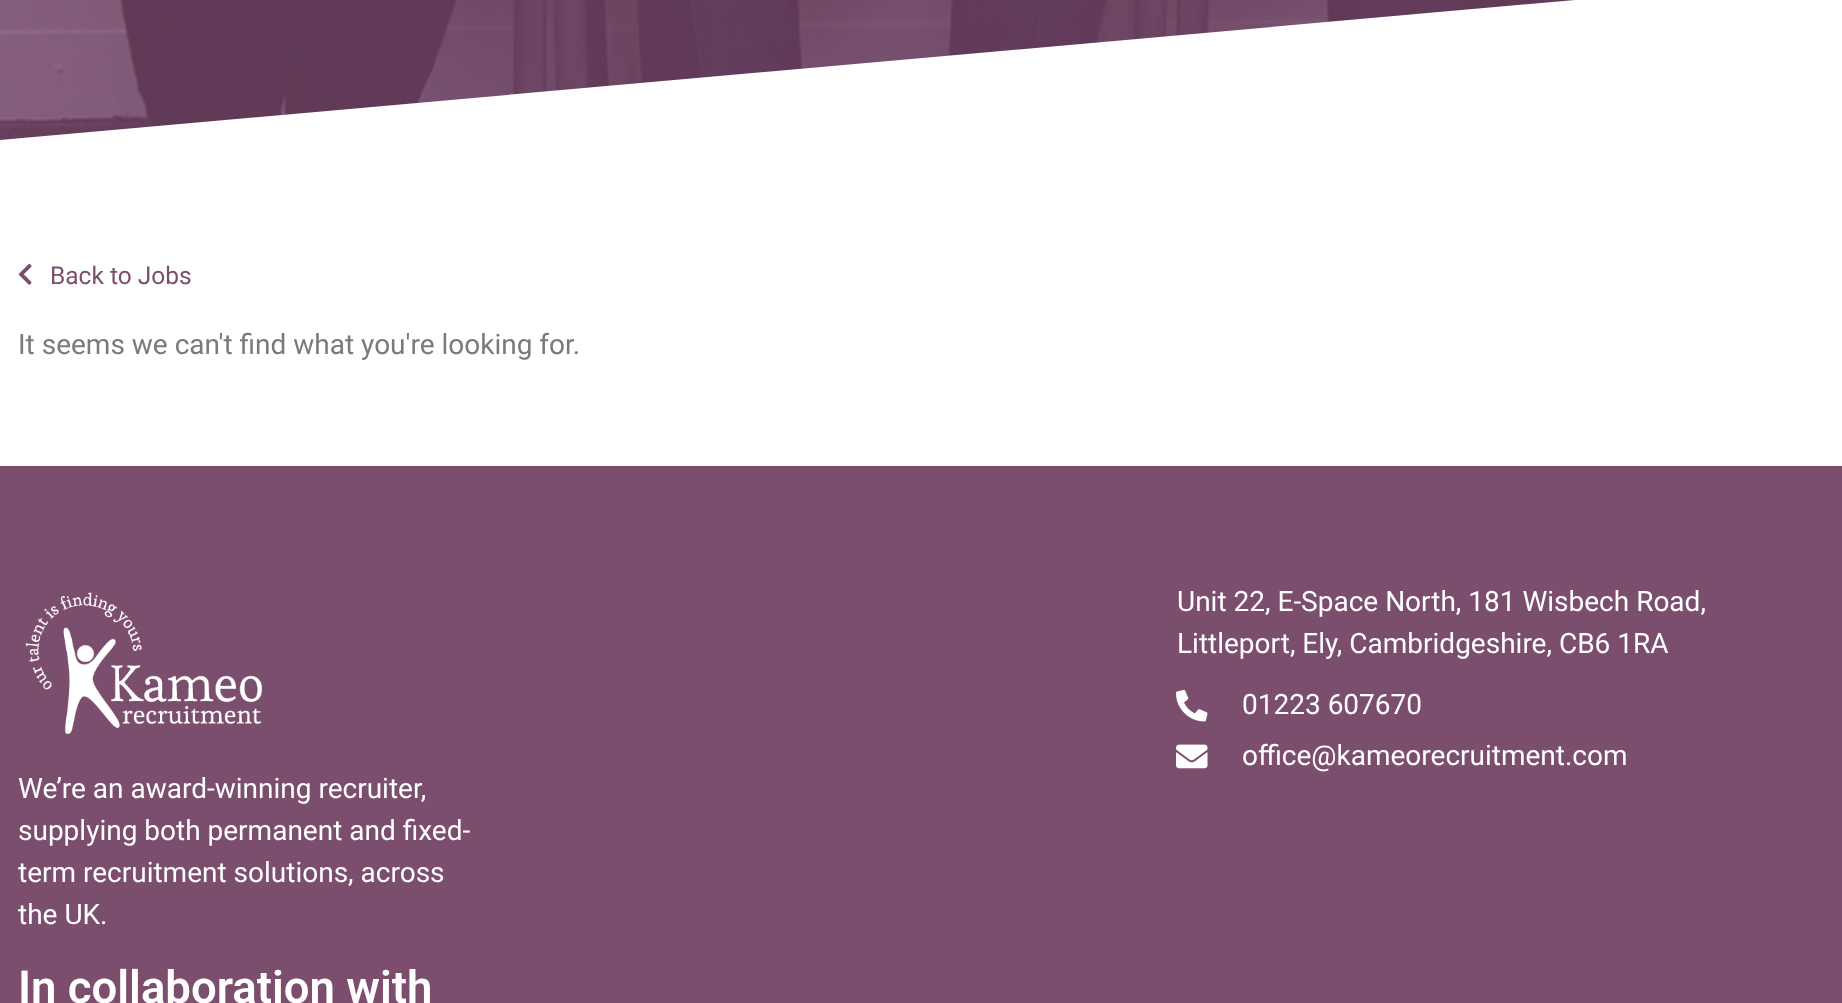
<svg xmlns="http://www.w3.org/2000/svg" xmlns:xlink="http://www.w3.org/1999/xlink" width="1842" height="1003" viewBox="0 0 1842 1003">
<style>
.cls-1{font:24.5px Roboto;fill:#7c4e6e}
.cls-2{font:28px Roboto;fill:#7a7a7a}
.cls-3{font:28px Roboto;fill:#ffffff}
.cls-4{font:600 45.5px Roboto;fill:#ffffff}
</style>
<rect width="100%" height="100%" fill="#ffffff"/>
<image xlink:href="image0.png" x="0" y="0" width="1575" height="140"/>
<path fill="#ffffff" d="M0 140V150H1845V-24Z"/>
<image xlink:href="image1.png" x="18" y="263" width="14" height="22"/>
<rect fill="#7c4e6e" x="0" y="466" width="1842" height="537"/>
<image xlink:href="image2.png" x="1176" y="690" width="32" height="32"/>
<image xlink:href="image3.png" x="1176" y="744" width="32" height="25"/>
<image xlink:href="image4.png" x="25" y="592" width="237" height="142"/>
<text class="cls-1" x="50" y="284">Back to Jobs</text>
<text class="cls-2" x="18" y="354">It seems we can't find what you're looking for.</text>
<text class="cls-3"><tspan x="1177" y="611">Unit 22, E-Space North, 181 Wisbech Road,</tspan><tspan x="1177" y="653">Littleport, Ely, Cambridgeshire, CB6 1RA</tspan></text>
<text class="cls-3"><tspan x="1242" y="714">01223 607670</tspan><tspan x="1242" y="765">office@kameorecruitment.com</tspan></text>
<text class="cls-3"><tspan x="18" y="798">We’re an award-winning recruiter,</tspan><tspan x="18" y="840">supplying both permanent and fixed-</tspan><tspan x="18" y="882">term recruitment solutions, across</tspan><tspan x="18" y="924">the UK.</tspan></text>
<text class="cls-4" x="18" y="1003">In collaboration with</text>
</svg>
